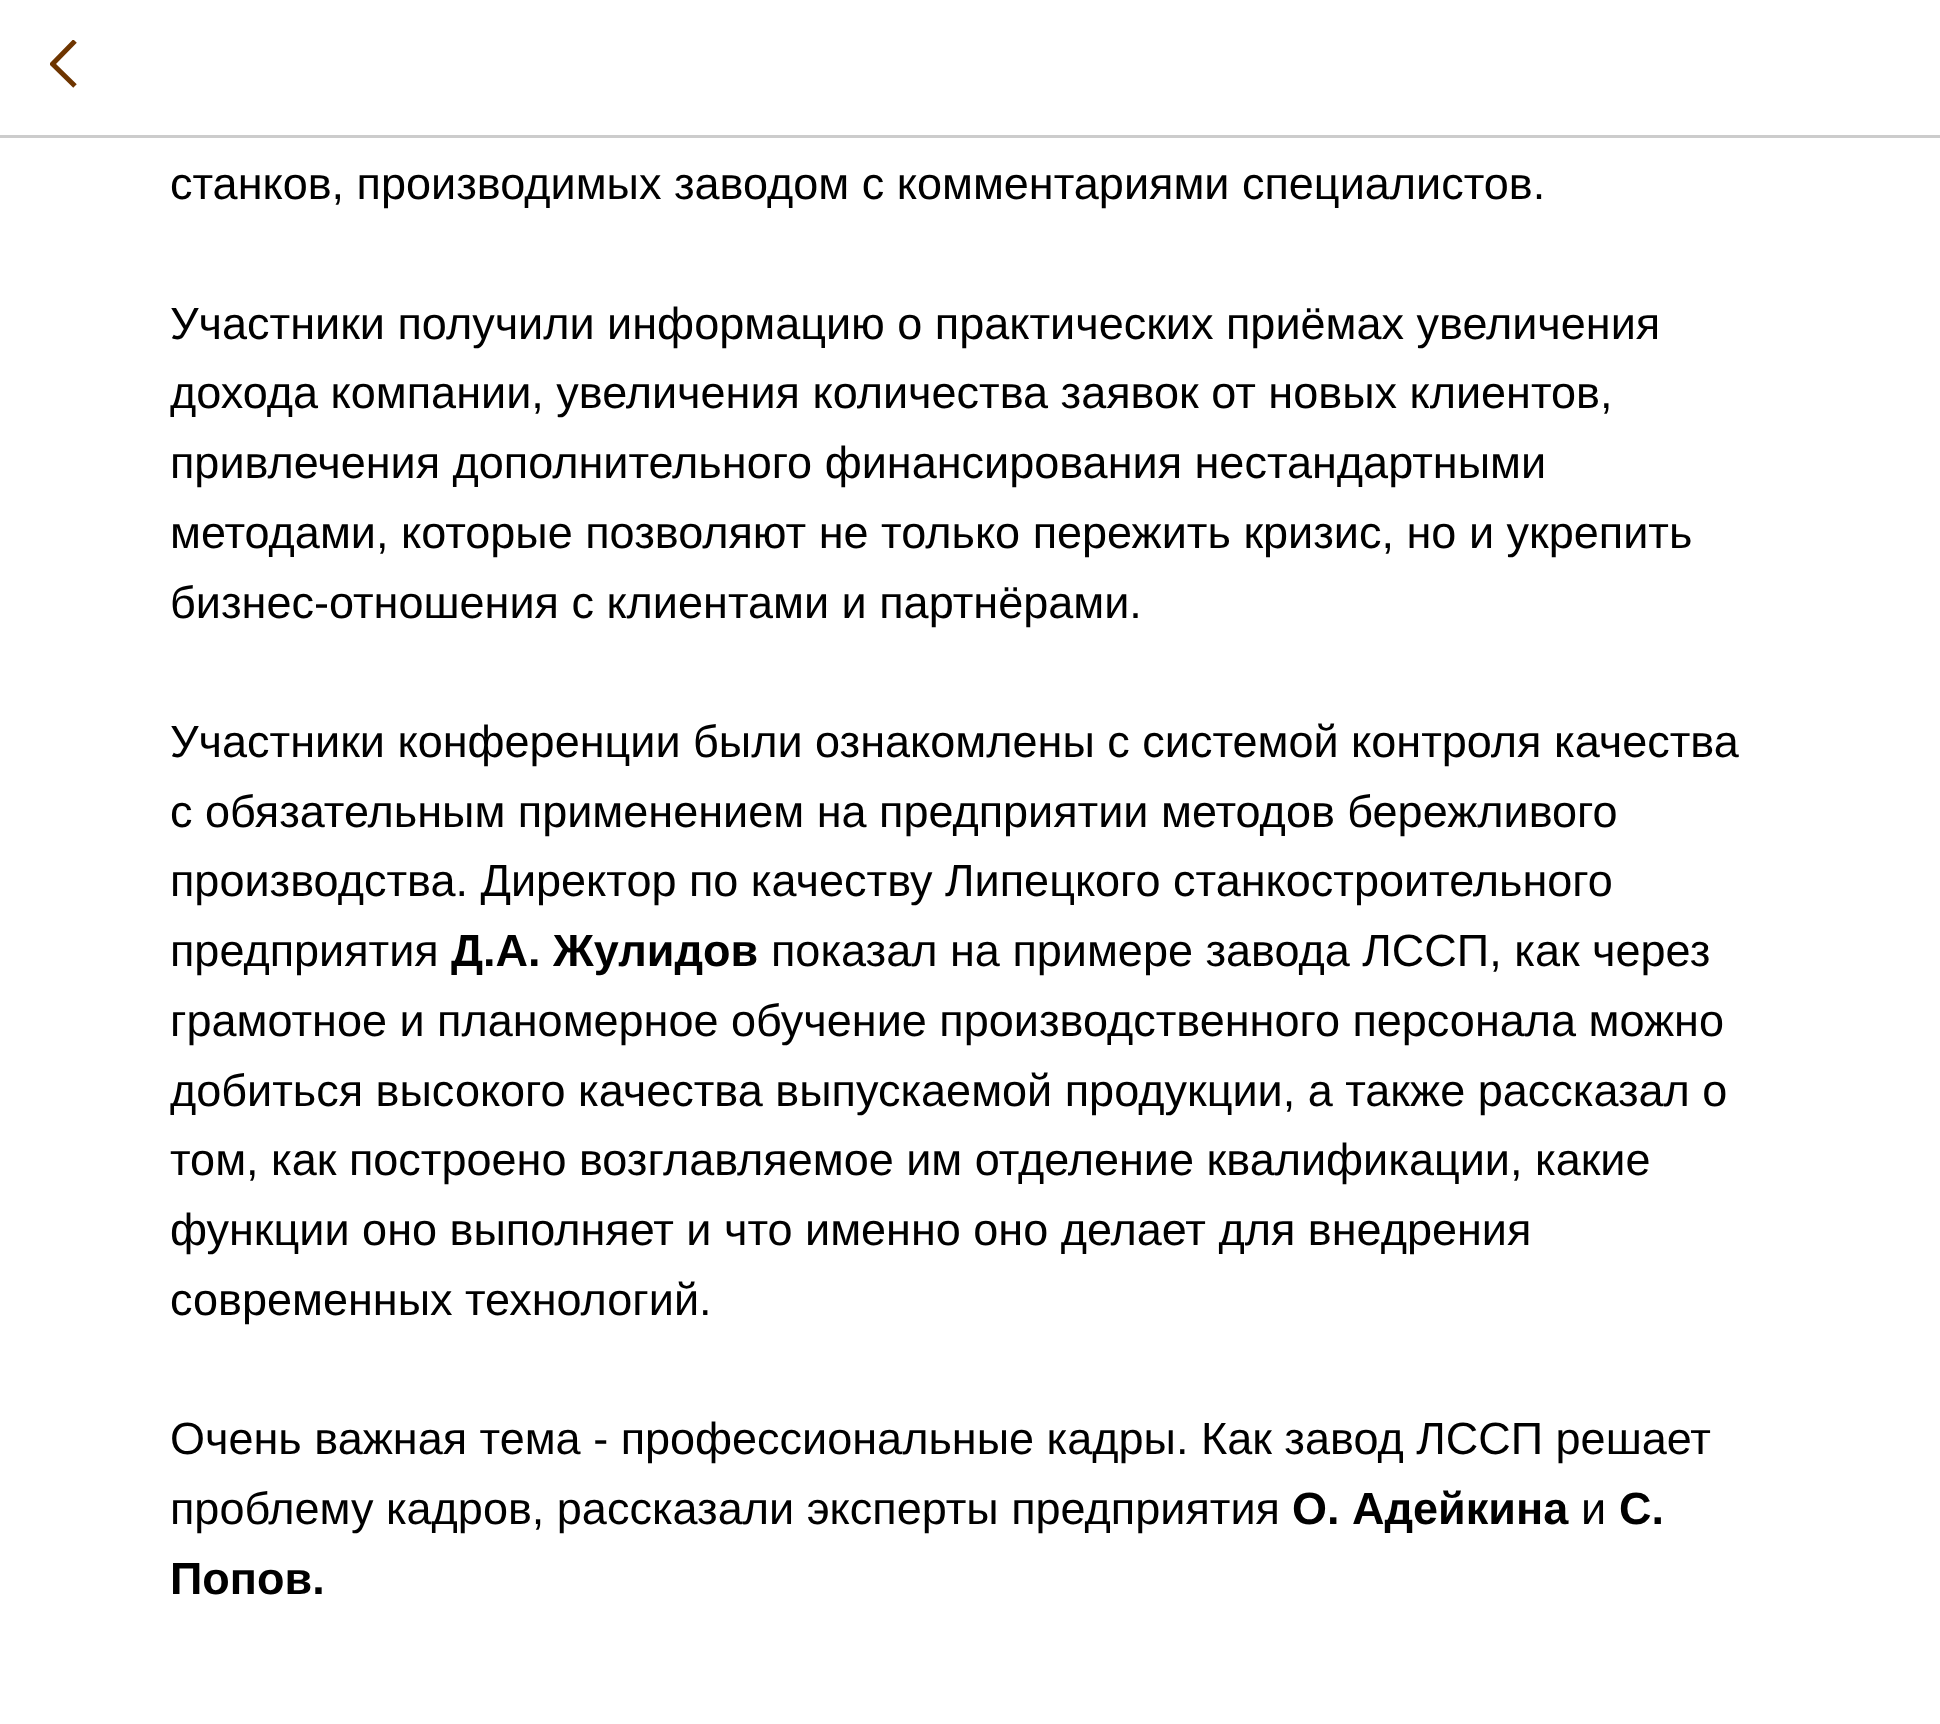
<svg xmlns="http://www.w3.org/2000/svg" xmlns:xlink="http://www.w3.org/1999/xlink" width="1940" height="1724" viewBox="0 0 1940 1724">
<style>
.cls-1{font:45px Liberation Sans;fill:#000000}
.cls-2{font:bold 45px Liberation Sans;fill:#000000}
</style>
<defs>
<clipPath id="clip1"><rect x="50" y="40" width="28" height="50"/></clipPath>
</defs>
<rect width="100%" height="100%" fill="#ffffff"/>
<rect fill="#cccccc" x="0" y="135" width="1940" height="3"/>
<g clip-path="url(#clip1)">
<path fill="none" stroke="#6e3500" stroke-width="5" d="M75 86L52.5 64L75 41"/>
</g>
<text class="cls-1" x="170" y="199">станков, производимых заводом с комментариями специалистов.</text>
<text class="cls-1"><tspan x="170" y="339">Участники получили информацию о практических приёмах увеличения</tspan><tspan x="170" y="408">дохода компании, увеличения количества заявок от новых клиентов,</tspan><tspan x="170" y="478">привлечения дополнительного финансирования нестандартными</tspan><tspan x="170" y="548">методами, которые позволяют не только пережить кризис, но и укрепить</tspan><tspan x="170" y="618">бизнес-отношения с клиентами и партнёрами.</tspan></text>
<text class="cls-1"><tspan x="170" y="757">Участники конференции были ознакомлены с системой контроля качества</tspan><tspan x="170" y="827">с обязательным применением на предприятии методов бережливого</tspan><tspan x="170" y="896">производства. Директор по качеству Липецкого станкостроительного</tspan><tspan x="170" y="966">предприятия</tspan></text>
<text class="cls-2" x="451" y="966">Д.А. Жулидов</text>
<text class="cls-1" x="771" y="966">показал на примере завода ЛССП, как через</text>
<text class="cls-1"><tspan x="170" y="1036">грамотное и планомерное обучение производственного персонала можно</tspan><tspan x="170" y="1106">добиться высокого качества выпускаемой продукции, а также рассказал о</tspan><tspan x="170" y="1175">том, как построено возглавляемое им отделение квалификации, какие</tspan><tspan x="170" y="1245">функции оно выполняет и что именно оно делает для внедрения</tspan><tspan x="170" y="1315">современных технологий.</tspan></text>
<text class="cls-1"><tspan x="170" y="1454">Очень важная тема - профессиональные кадры. Как завод ЛССП решает</tspan><tspan x="170" y="1524">проблему кадров, рассказали эксперты предприятия</tspan></text>
<text class="cls-2" x="1292" y="1524">О. Адейкина</text>
<text class="cls-1" x="1581" y="1524">и</text>
<text class="cls-2" x="1619" y="1524">С.</text>
<text class="cls-2" x="170" y="1594">Попов.</text>
</svg>
